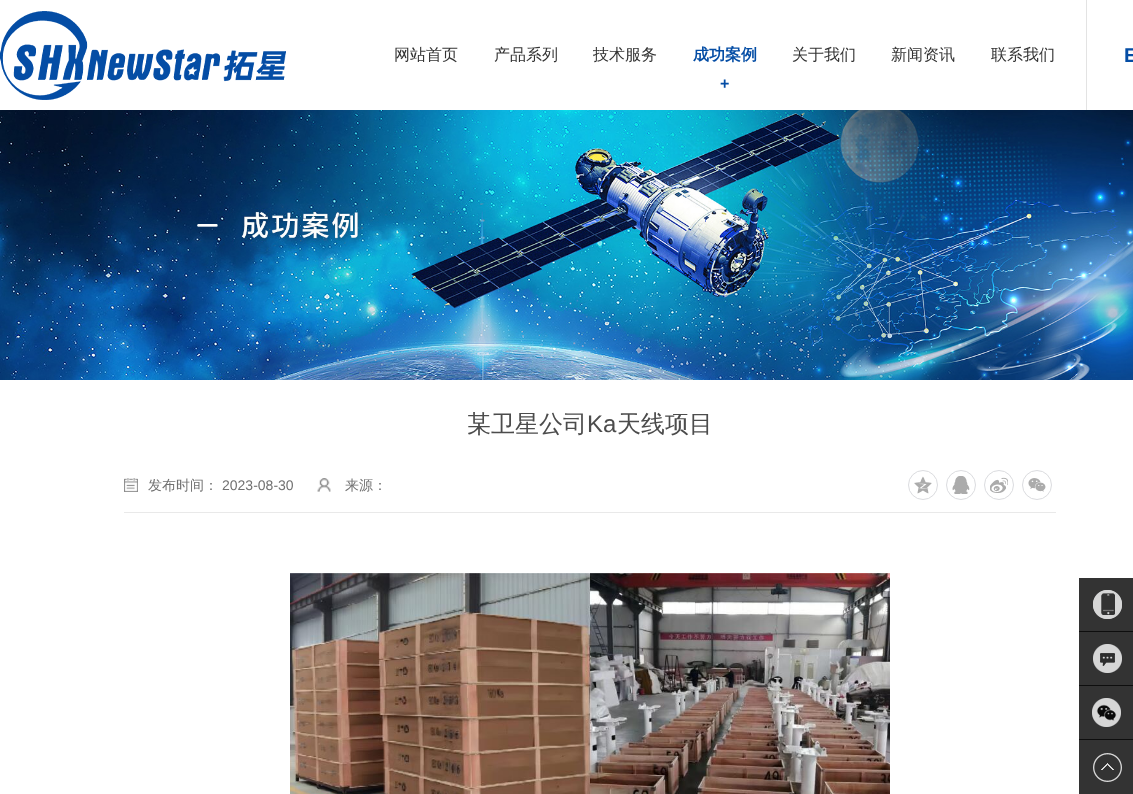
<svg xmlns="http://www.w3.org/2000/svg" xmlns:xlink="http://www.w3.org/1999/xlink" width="1133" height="794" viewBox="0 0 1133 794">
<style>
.cls-1{font:500 16px WenQuanYi Zen Hei;fill:#333333}
.cls-2{font:bold 16px WenQuanYi Zen Hei;fill:#044da5}
.cls-3{font:bold 16px Liberation Sans;fill:#044da5}
.cls-4{font:bold 20px Liberation Sans;fill:#044da5}
.cls-5{font:500 24px WenQuanYi Zen Hei;fill:#4c4c4c}
.cls-6{font:24px Liberation Sans;fill:#4c4c4c}
.cls-7{font:500 14px WenQuanYi Zen Hei;fill:#717171}
.cls-8{font:14px Liberation Sans;fill:#717171}
</style>
<rect width="100%" height="100%" fill="#ffffff"/>
<rect fill="#333333" x="1079" y="686" width="54" height="53"/>
<rect fill="#333333" x="1079" y="632" width="54" height="53"/>
<rect fill="#333333" x="1079" y="578" width="54" height="53"/>
<image xlink:href="image0.png" x="0" y="11" width="286" height="89"/>
<rect fill="#e3e3e3" x="1086" y="0" width="1" height="110"/>
<image xlink:href="image1.png" x="0" y="110" width="1133" height="270"/>
<rect fill="#e9e9e9" x="124" y="512" width="932" height="1"/>
<image xlink:href="image2.png" x="124" y="478" width="14" height="14"/>
<image xlink:href="image3.png" x="317" y="478" width="14" height="14"/>
<circle fill="none" stroke="#dbdcdf" cx="923" cy="485" r="14.5"/>
<image xlink:href="image4.png" x="914" y="476" width="18" height="18"/>
<circle fill="none" stroke="#dbdcdf" cx="961" cy="485" r="14.5"/>
<image xlink:href="image5.png" x="952" y="476" width="18" height="18"/>
<circle fill="none" stroke="#dbdcdf" cx="999" cy="485" r="14.5"/>
<image xlink:href="image6.png" x="990" y="477" width="18" height="16"/>
<circle fill="none" stroke="#dbdcdf" cx="1037" cy="485" r="14.5"/>
<image xlink:href="image7.png" x="1028" y="478" width="18" height="14"/>
<image xlink:href="image8.png" x="290" y="573" width="600" height="221"/>
<rect fill="#0e0e0e" x="1079" y="631" width="54" height="1"/>
<image xlink:href="image9.png" x="1093" y="590" width="29" height="29"/>
<rect fill="#0e0e0e" x="1079" y="685" width="54" height="1"/>
<image xlink:href="image10.png" x="1093" y="644" width="29" height="29"/>
<rect fill="#0e0e0e" x="1079" y="739" width="54" height="1"/>
<image xlink:href="image11.png" x="1092" y="698" width="29" height="29"/>
<rect fill="#333333" x="1079" y="740" width="54" height="54"/>
<image xlink:href="image12.png" x="1093" y="753" width="29" height="29"/>
<text class="cls-1" x="394" y="60">网站首页</text>
<text class="cls-1" x="494" y="60">产品系列</text>
<text class="cls-1" x="593" y="60">技术服务</text>
<text class="cls-2" x="693" y="60">成功案例</text>
<text class="cls-3" x="720" y="89">+</text>
<text class="cls-1" x="792" y="60">关于我们</text>
<text class="cls-1" x="891" y="60">新闻资讯</text>
<text class="cls-1" x="991" y="60">联系我们</text>
<text class="cls-4" x="1124" y="62">E</text>
<text class="cls-5" x="467" y="432">某卫星公司</text>
<text class="cls-6" x="587" y="432">Ka</text>
<text class="cls-5" x="617" y="432">天线项目</text>
<text class="cls-7" x="148" y="490">发布时间：</text>
<text class="cls-8" x="222" y="490">2023-08-30</text>
<text class="cls-7" x="345" y="490">来源：</text>
</svg>
